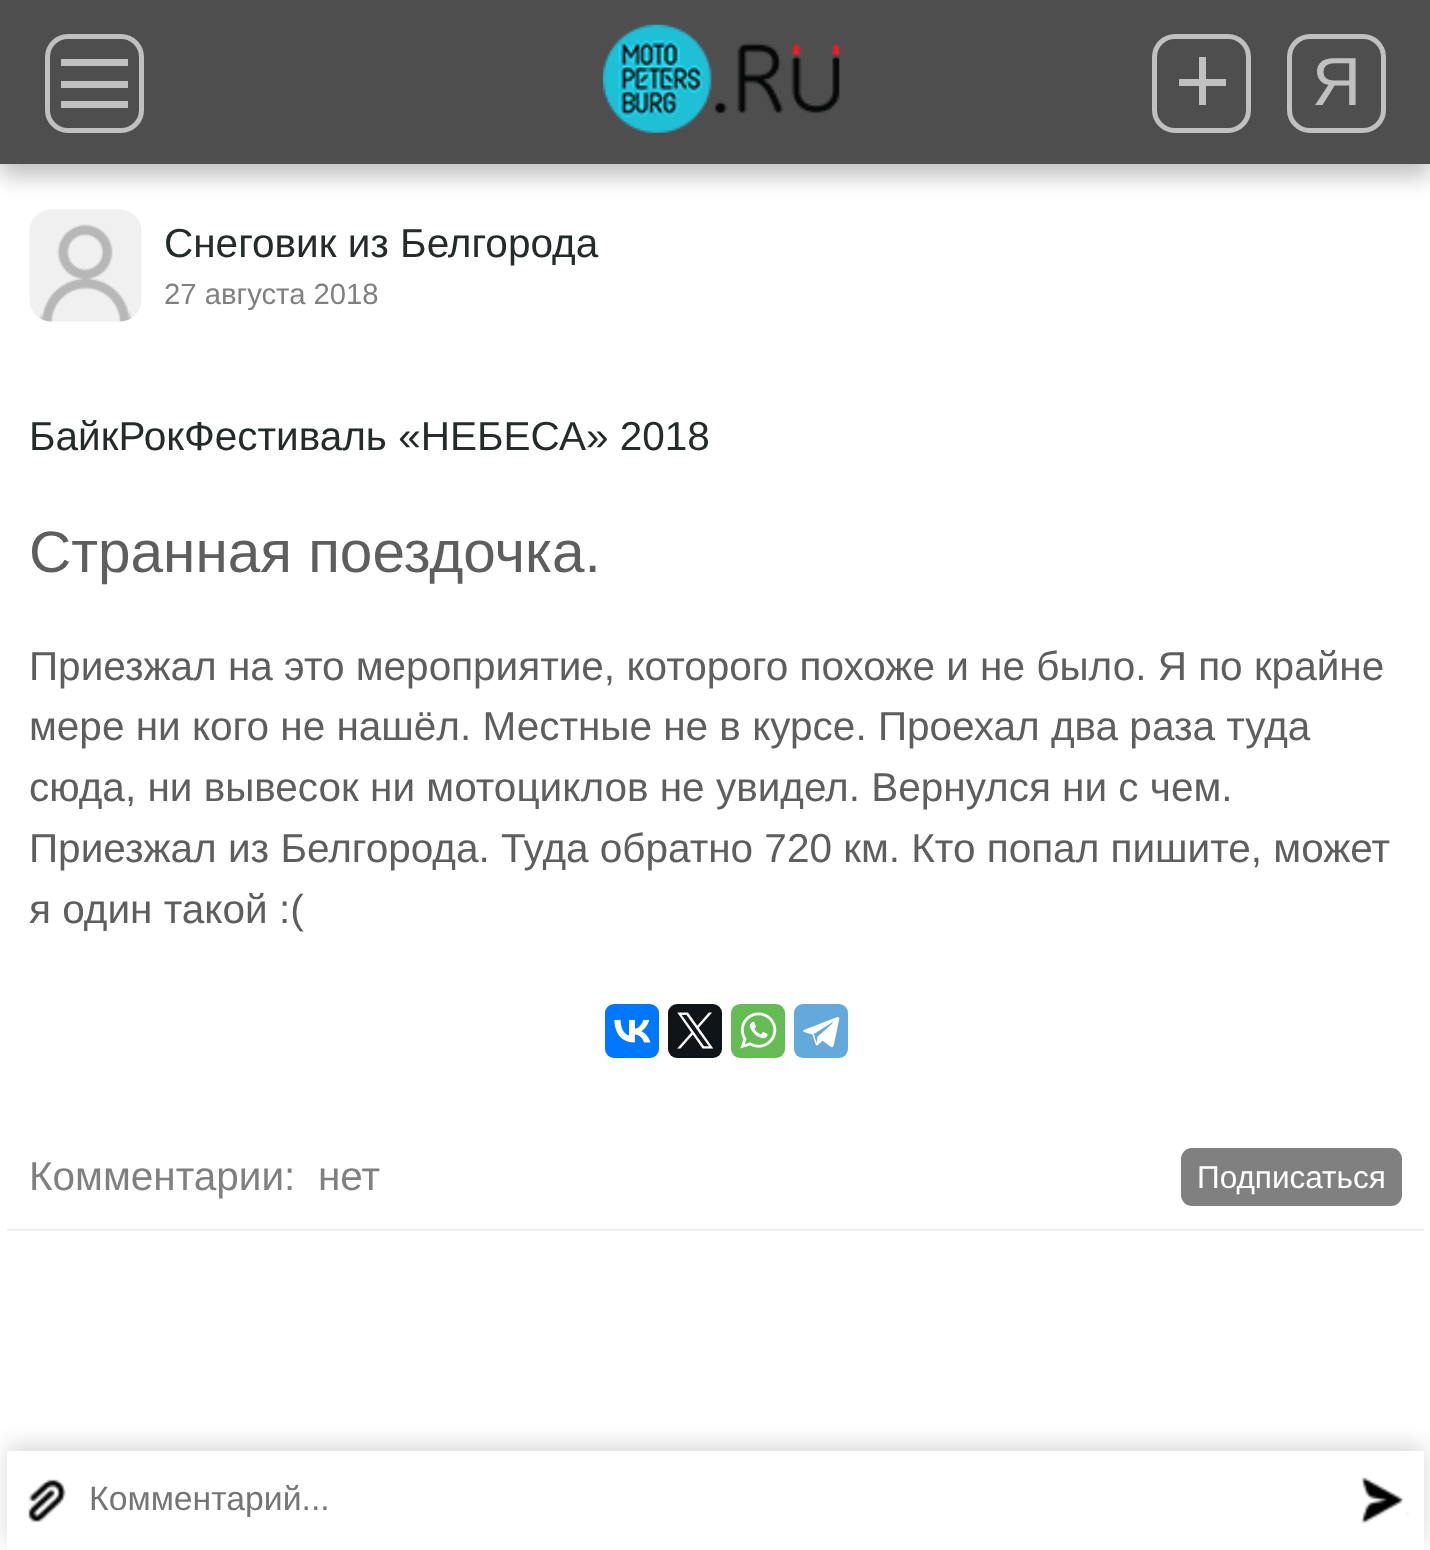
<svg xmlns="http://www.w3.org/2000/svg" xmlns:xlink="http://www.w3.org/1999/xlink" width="1430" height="1550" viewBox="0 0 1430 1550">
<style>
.cls-1{font:68px Liberation Sans;fill:#c0c0c0}
.cls-2{font:40.5px Liberation Sans;fill:#252a2b}
.cls-3{font:29.25px Liberation Sans;fill:#808080}
.cls-4{font:58.5px Liberation Sans;fill:#5e5e5e}
.cls-5{font:40.5px Liberation Sans;fill:#5e5e5e}
.cls-6{font:40.5px Liberation Sans;fill:#808080}
.cls-7{font:31.5px Liberation Sans;fill:#ffffff}
.cls-8{font:33.75px Liberation Sans;fill:#757575}
</style>
<rect width="100%" height="100%" fill="#ffffff"/>
<image xlink:href="image1.png" x="29" y="209" width="113" height="113"/>
<rect fill="#000000" fill-opacity="0.25" filter="blur(11px)" x="0" y="11" width="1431" height="165"/>
<rect fill="#4e4e4e" x="0" y="0" width="1430" height="164"/>
<rect fill="none" stroke="#c0c0c0" stroke-width="5" x="47.5" y="36.5" width="94" height="94" rx="20.5"/>
<rect fill="#c0c0c0" x="61" y="81" width="67" height="7"/>
<rect fill="#c0c0c0" x="61" y="59" width="67" height="7"/>
<rect fill="#c0c0c0" x="61" y="101" width="67" height="7"/>
<image xlink:href="image0.png" x="603" y="24" width="237" height="109"/>
<rect fill="none" stroke="#c0c0c0" stroke-width="5" x="1154.5" y="36.5" width="94" height="94" rx="20.5"/>
<rect fill="#c0c0c0" x="1179" y="79" width="47" height="7"/>
<rect fill="#c0c0c0" x="1199" y="57" width="7" height="48"/>
<rect fill="none" stroke="#c0c0c0" stroke-width="5" x="1289.5" y="36.5" width="94" height="94" rx="20.5"/>
<rect fill="#0077ff" x="605" y="1004" width="54" height="54" rx="9"/>
<image xlink:href="image2.png" x="614" y="1019" width="37" height="24"/>
<rect fill="#0f1419" x="668" y="1004" width="54" height="54" rx="9"/>
<image xlink:href="image3.png" x="677" y="1012" width="37" height="37"/>
<rect fill="#65bc54" x="731" y="1004" width="54" height="54" rx="9"/>
<image xlink:href="image4.png" x="740" y="1012" width="37" height="37"/>
<rect fill="#64a9dc" x="794" y="1004" width="54" height="54" rx="9"/>
<image xlink:href="image5.png" x="803" y="1017" width="37" height="31"/>
<rect fill="#eeeeee" x="7" y="1229" width="1417" height="2"/>
<rect fill="#808080" x="1181" y="1148" width="221" height="58" rx="11"/>
<rect fill="#000000" fill-opacity="0.15" filter="blur(11px)" x="7" y="1445" width="1417" height="99"/>
<rect fill="#ffffff" x="7" y="1451" width="1417" height="99"/>
<image xlink:href="image6.png" x="28" y="1479" width="38" height="44"/>
<image xlink:href="image7.png" x="1361" y="1477" width="48" height="47"/>
<text class="cls-1" x="1312" y="105">Я</text>
<text class="cls-2" x="164" y="257">Снеговик из Белгорода</text>
<text class="cls-3" x="164" y="304">27 августа 2018</text>
<text class="cls-2" x="29" y="450">БайкРокФестиваль «НЕБЕСА» 2018</text>
<text class="cls-4" x="29" y="572">Странная поездочка.</text>
<text class="cls-5"><tspan x="29" y="680">Приезжал на это мероприятие, которого похоже и не было. Я по крайне</tspan><tspan x="29" y="740">мере ни кого не нашёл. Местные не в курсе. Проехал два раза туда</tspan><tspan x="29" y="801">сюда, ни вывесок ни мотоциклов не увидел. Вернулся ни с чем.</tspan><tspan x="29" y="862">Приезжал из Белгорода. Туда обратно 720 км. Кто попал пишите, может</tspan><tspan x="29" y="923">я один такой :(</tspan></text>
<text class="cls-6" x="29" y="1190">Комментарии:</text>
<text class="cls-6" x="318" y="1190">нет</text>
<text class="cls-7" x="1197" y="1188">Подписаться</text>
<text class="cls-8" x="89" y="1510">Комментарий...</text>
</svg>
